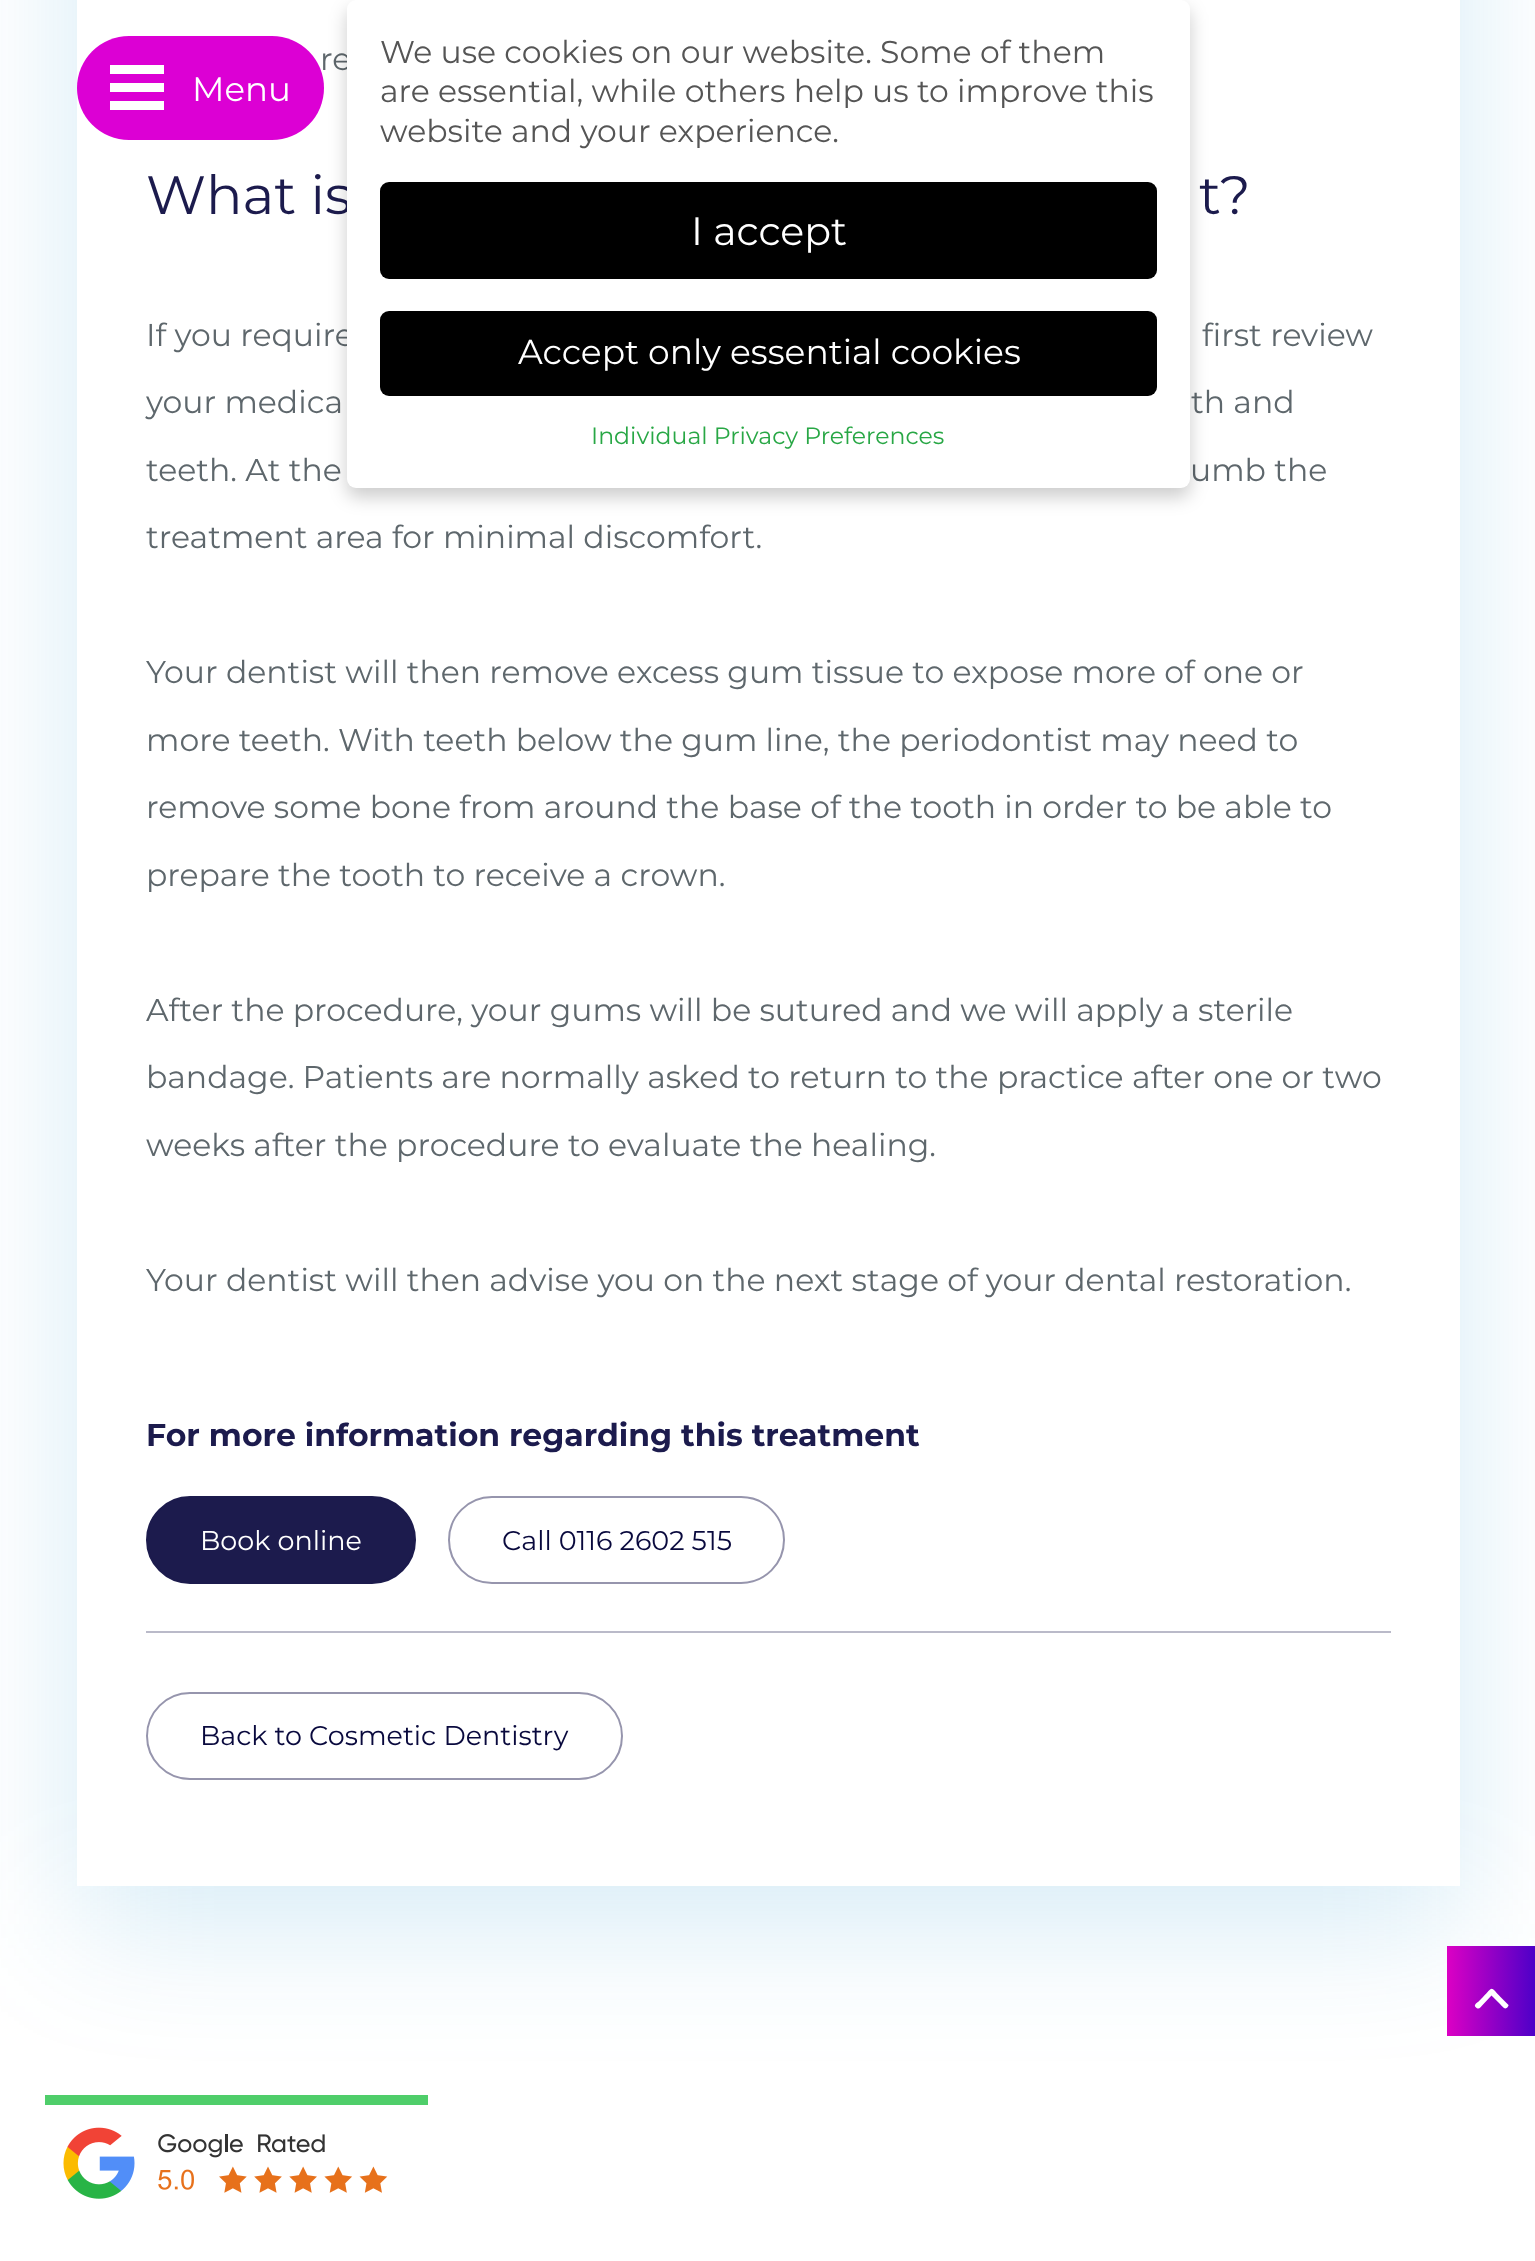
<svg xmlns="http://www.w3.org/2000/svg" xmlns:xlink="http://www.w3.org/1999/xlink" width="1535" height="2261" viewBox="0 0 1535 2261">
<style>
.cls-1{font:31.5px Montserrat;fill:#5e676c}
.cls-2{font:54px Montserrat;fill:#1c1b4d}
.cls-3{font:bold 31.5px Montserrat;fill:#1c1b4d}
.cls-4{font:27px Montserrat;fill:#ffffff}
.cls-5{font:27px Montserrat;fill:#09093d}
.cls-6{font:23.6px Montserrat;fill:#28a745}
.cls-7{font:34.5px Montserrat;fill:#ffffff}
.cls-8{font:39.5px Montserrat;fill:#ffffff}
.cls-9{font:31.5px Montserrat;fill:#555555}
.cls-10{font:34px Montserrat;fill:#ffffff}
</style>
<defs>
<linearGradient id="g1" gradientUnits="userSpaceOnUse" x1="1447" y1="1991" x2="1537" y2="1991"><stop offset="0" stop-color="#dc00c4"/><stop offset="1" stop-color="#4a00c8"/></linearGradient>
</defs>
<rect width="100%" height="100%" fill="#ffffff"/>
<rect fill="#1791cc" fill-opacity="0.18" filter="blur(66.5px)" x="77" y="-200" width="1383" height="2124"/>
<rect fill="#ffffff" x="77" y="0" width="1383" height="1886"/>
<rect fill="#1c1b4d" stroke="#1c1b4d" stroke-width="2" x="147" y="1497" width="268" height="86" rx="43"/>
<rect fill="none" stroke="#9695ad" stroke-width="2" x="449" y="1497" width="335" height="86" rx="43"/>
<rect fill="#babac9" x="146" y="1631" width="1245" height="2"/>
<rect fill="none" stroke="#9695ad" stroke-width="2" x="147" y="1693" width="475" height="86" rx="43"/>
<rect fill="url(#g1)" x="1447" y="1946" width="88" height="90"/>
<path fill="#ffffff" d="M1475.5 2007C1479 2010.5 1480 2007.5 1483.5 2004L1491.5 1995.5L1500 2004C1502.5 2006.5 1505 2011 1508 2006.5C1508.5 2006 1508.5 2005.5 1508.5 2005L1500.5 1997C1490 1986 1493.5 1986 1483 1997L1478 2002C1477 2002.5 1473.5 2005 1475.5 2007Z"/>
<image xlink:href="image0.png" x="45" y="2095" width="383" height="104"/>
<text class="cls-1" x="320" y="70">re</text>
<text class="cls-2" x="146" y="214">What is</text>
<text class="cls-2" x="1199" y="214">t?</text>
<text class="cls-1" x="146" y="346">If you require</text>
<text class="cls-1" x="1202" y="346">first review</text>
<text class="cls-1" x="146" y="413">your medica</text>
<text class="cls-1" x="1191" y="413">th and</text>
<text class="cls-1" x="146" y="481">teeth. At the</text>
<text class="cls-1" x="1190" y="481">umb the</text>
<text class="cls-1" x="146" y="548">treatment area for minimal discomfort.</text>
<text class="cls-1" x="146" y="683">Your dentist will then remove excess gum tissue to expose more of one or</text>
<text class="cls-1" x="146" y="751">more teeth. With teeth below the gum line, the periodontist may need to</text>
<text class="cls-1" x="146" y="818">remove some bone from around the base of the tooth in order to be able to</text>
<text class="cls-1" x="146" y="886">prepare the tooth to receive a crown.</text>
<text class="cls-1" x="146" y="1021">After the procedure, your gums will be sutured and we will apply a sterile</text>
<text class="cls-1" x="146" y="1088">bandage. Patients are normally asked to return to the practice after one or two</text>
<text class="cls-1" x="146" y="1156">weeks after the procedure to evaluate the healing.</text>
<text class="cls-1" x="146" y="1291">Your dentist will then advise you on the next stage of your dental restoration.</text>
<text class="cls-3" x="146" y="1446">For more information regarding this treatment</text>
<text class="cls-4" x="200" y="1550">Book online</text>
<text class="cls-5" x="502" y="1550">Call 0116 2602 515</text>
<text class="cls-5" x="200" y="1745">Back to Cosmetic Dentistry</text>
<rect fill="#dc00d4" x="77" y="36" width="247" height="104" rx="52"/>
<rect fill="#000000" fill-opacity="0.2" filter="blur(9px)" x="347" y="9" width="843" height="488" rx="9"/>
<rect fill="#ffffff" x="347" y="0" width="843" height="488" rx="9"/>
<text class="cls-6" x="591" y="444">Individual Privacy Preferences</text>
<rect fill="#000000" x="380" y="311" width="777" height="85" rx="9"/>
<text class="cls-7" x="518" y="364">Accept only essential cookies</text>
<rect fill="#000000" x="380" y="182" width="777" height="97" rx="9"/>
<text class="cls-8" x="691" y="245">I accept</text>
<text class="cls-9" x="380" y="142">website and your experience.</text>
<text class="cls-9" x="380" y="102">are essential, while others help us to improve this</text>
<text class="cls-9" x="380" y="63">We use cookies on our website. Some of them</text>
<rect fill="#ffffff" x="110" y="65" width="54" height="9"/>
<rect fill="#ffffff" x="110" y="83" width="54" height="9"/>
<rect fill="#ffffff" x="110" y="101" width="54" height="9"/>
<text class="cls-10" x="192" y="101">Menu</text>
</svg>
